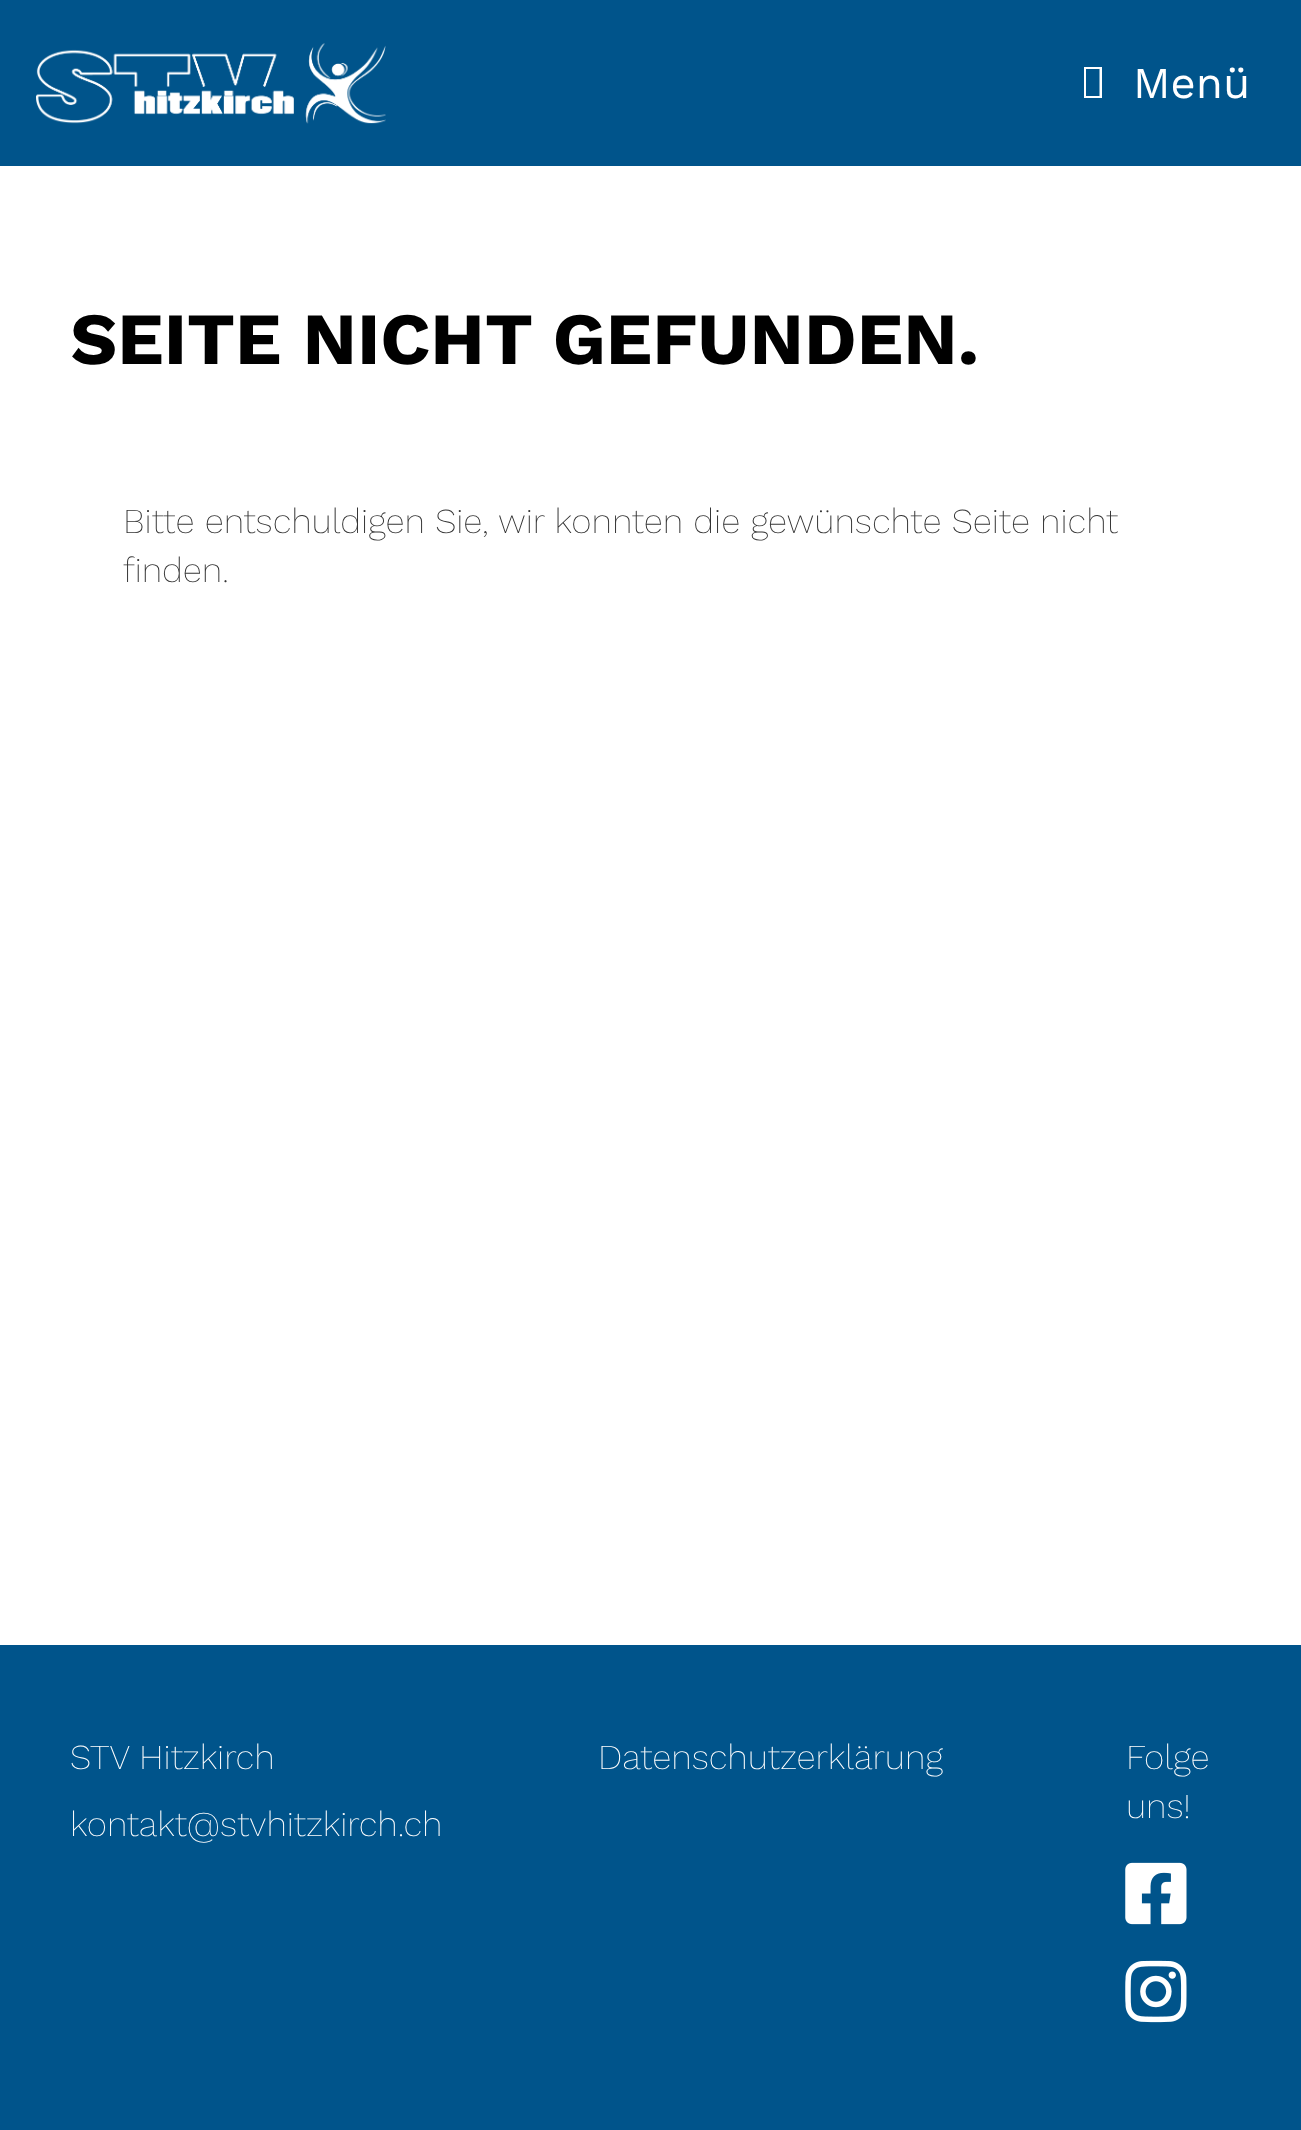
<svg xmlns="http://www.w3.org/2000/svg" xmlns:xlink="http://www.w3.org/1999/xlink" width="1301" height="2130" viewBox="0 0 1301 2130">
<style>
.cls-1{font:44px Work Sans;fill:#ffffff}
.cls-2{font:bold 73.5px Work Sans;fill:#000000}
.cls-3{font:200 35px Work Sans;fill:#333333}
.cls-4{font:200 35px Work Sans;fill:#ffffff}
</style>
<rect width="100%" height="100%" fill="#ffffff"/>
<rect fill="#00548b" x="0" y="0" width="1301" height="166"/>
<image xlink:href="image0.png" x="36" y="43" width="350" height="81"/>
<path fill="#ffffff" d="M1084 98V67H1102V98ZM1086 96H1099.5V69H1086Z"/>
<rect fill="#00548b" x="0" y="1645" width="1301" height="485"/>
<image xlink:href="image1.png" x="1125" y="1862" width="62" height="63"/>
<image xlink:href="image2.png" x="1125" y="1960" width="62" height="63"/>
<text class="cls-1" x="1133" y="98">Menü</text>
<text class="cls-2" x="70" y="364">SEITE NICHT GEFUNDEN.</text>
<text class="cls-3"><tspan x="123" y="533">Bitte entschuldigen Sie, wir konnten die gewünschte Seite nicht</tspan><tspan x="123" y="582">finden.</tspan></text>
<text class="cls-4"><tspan x="70" y="1769">STV Hitzkirch</tspan><tspan x="70" y="1836">kontakt@stvhitzkirch.ch</tspan></text>
<text class="cls-4" x="598" y="1769">Datenschutzerklärung</text>
<text class="cls-4"><tspan x="1126" y="1769">Folge</tspan><tspan x="1126" y="1818">uns!</tspan></text>
</svg>
